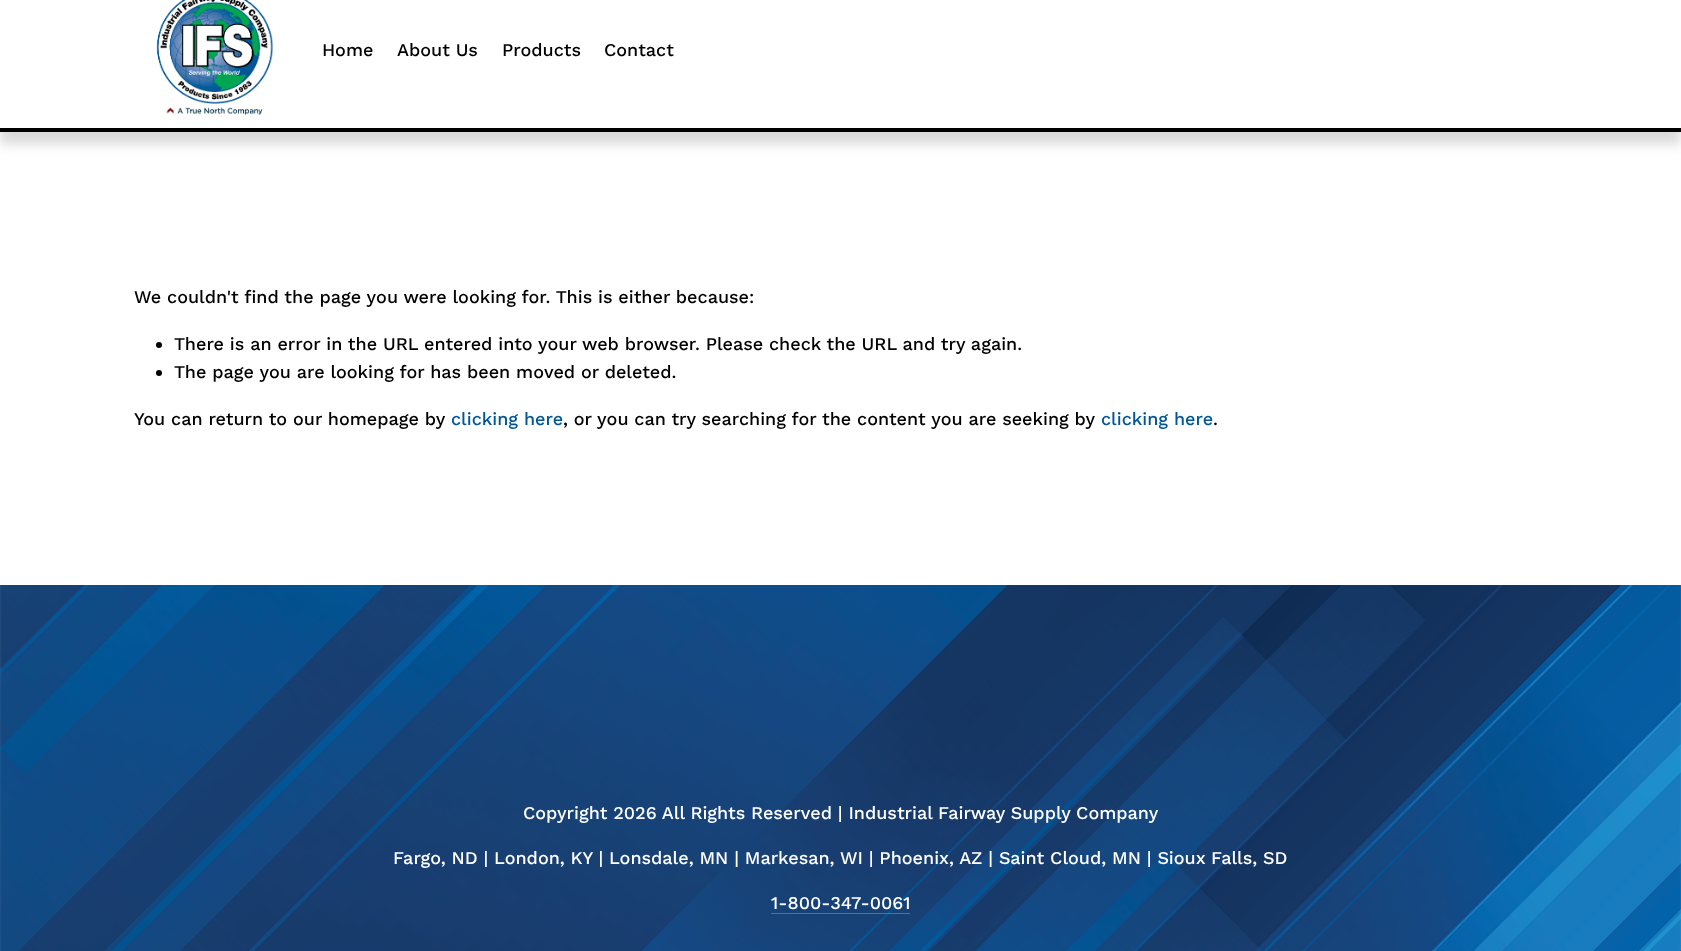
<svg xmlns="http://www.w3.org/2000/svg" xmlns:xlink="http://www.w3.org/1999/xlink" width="1681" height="951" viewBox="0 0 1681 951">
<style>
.cls-1{font:500 18px Work Sans;fill:#000000}
.cls-2{font:500 18px Work Sans;fill:#015696}
.cls-3{font:500 18px Work Sans;fill:#ffffff}
</style>
<defs>
<clipPath id="clip1"><rect x="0" y="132" width="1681" height="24"/></clipPath>
</defs>
<rect width="100%" height="100%" fill="#ffffff"/>
<g clip-path="url(#clip1)">
<rect fill="#d9d9d9" filter="blur(6px)" x="0" y="-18" width="1681" height="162"/>
</g>
<image xlink:href="image0.png" x="156" y="0" width="118" height="116"/>
<rect fill="#000000" x="0" y="128" width="1681" height="4"/>
<circle fill="#000000" cx="159" cy="345" r="3"/>
<circle fill="#000000" cx="159" cy="373" r="3"/>
<image xlink:href="image1.png" x="0" y="585" width="1681" height="366"/>
<rect fill="#01a751" x="771" y="913" width="139" height="1"/>
<text class="cls-1" x="322" y="56">Home</text>
<text class="cls-1" x="397" y="56">About Us</text>
<text class="cls-1" x="502" y="56">Products</text>
<text class="cls-1" x="604" y="56">Contact</text>
<text class="cls-1" x="134" y="303">We couldn't find the page you were looking for. This is either because:</text>
<text class="cls-1"><tspan x="174" y="350">There is an error in the URL entered into your web browser. Please check the URL and try again.</tspan><tspan x="174" y="378">The page you are looking for has been moved or deleted.</tspan></text>
<text class="cls-1" x="134" y="425">You can return to our homepage by</text>
<text class="cls-2" x="451" y="425">clicking here</text>
<text class="cls-1" x="563" y="425">, or you can try searching for the content you are seeking by</text>
<text class="cls-2" x="1101" y="425">clicking here</text>
<text class="cls-1" x="1213" y="425">.</text>
<text class="cls-3" x="523" y="819">Copyright 2026 All Rights Reserved | Industrial Fairway Supply Company</text>
<text class="cls-3" x="393" y="864">Fargo, ND | London, KY | Lonsdale, MN | Markesan, WI | Phoenix, AZ | Saint Cloud, MN | Sioux Falls, SD</text>
<text class="cls-3" x="771" y="909">1-800-347-0061</text>
</svg>
